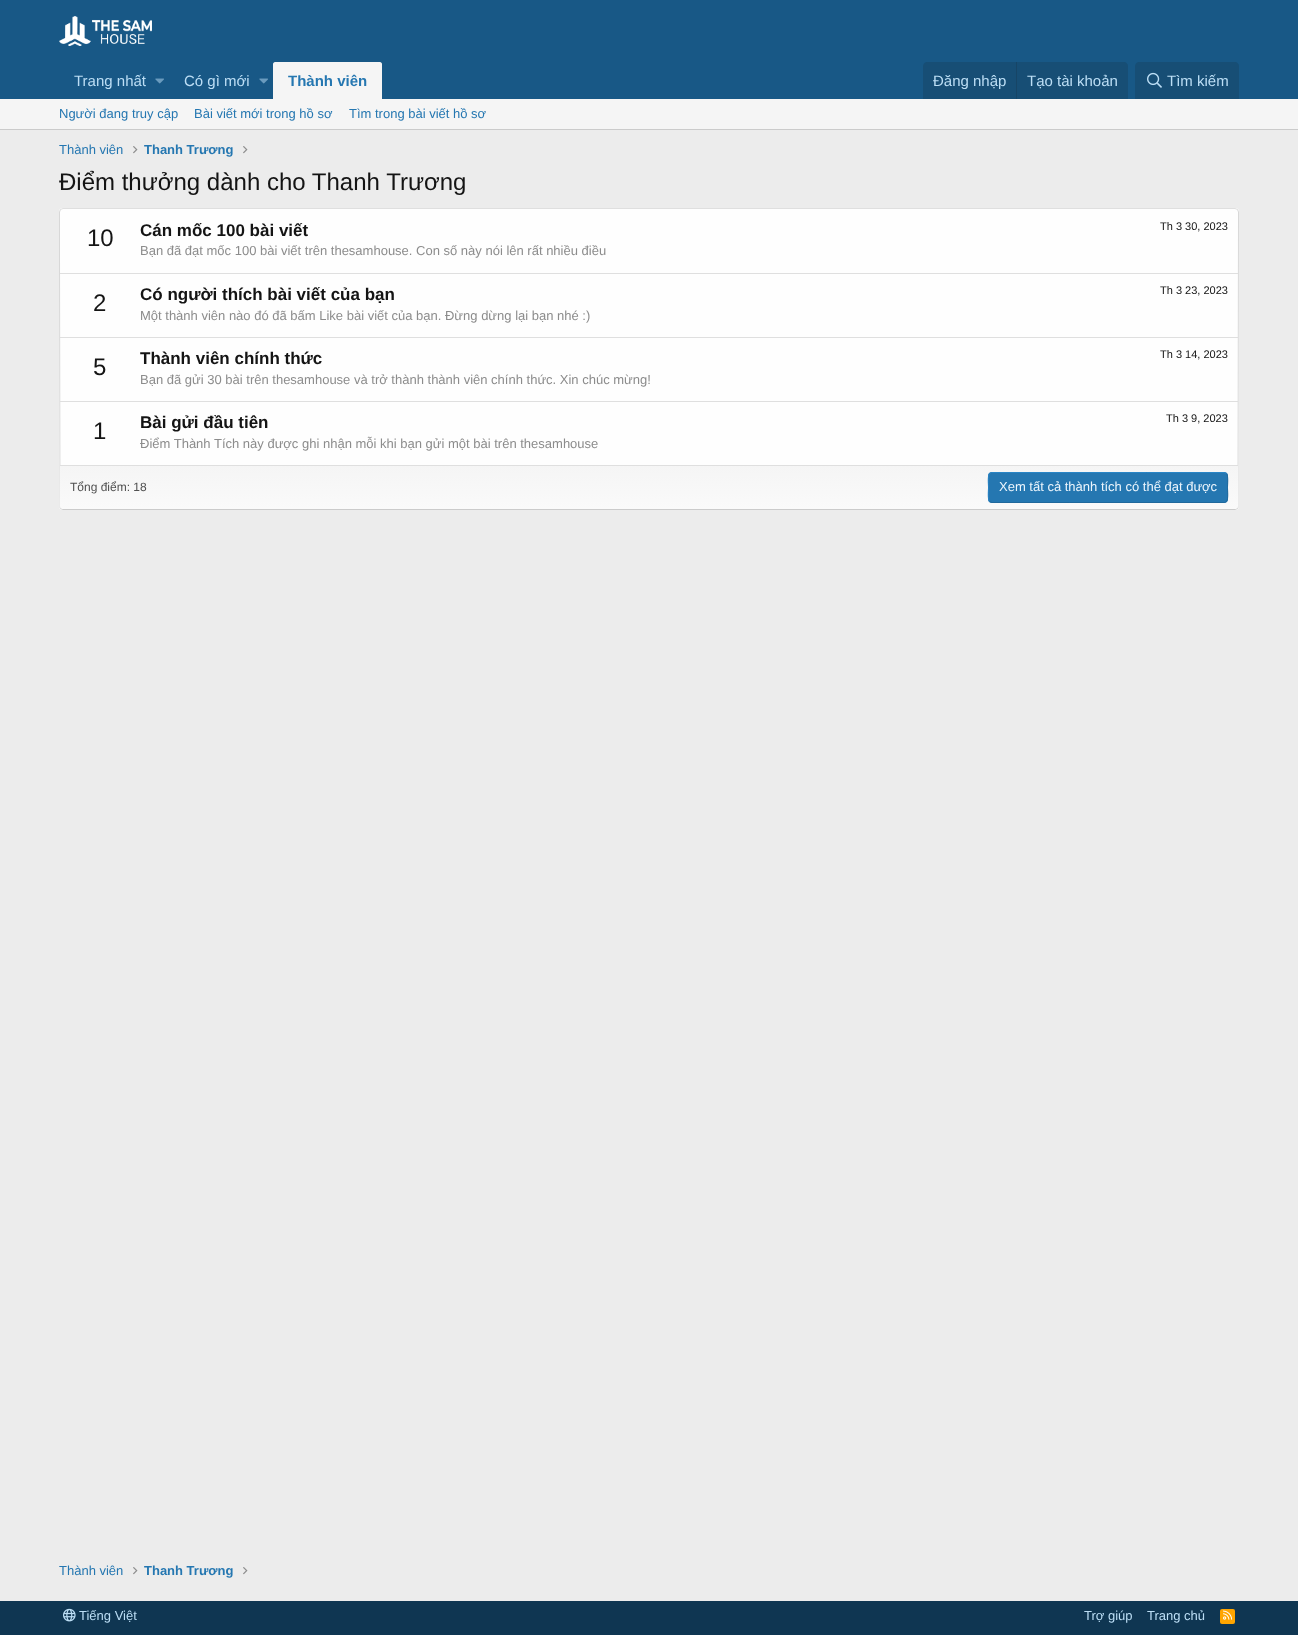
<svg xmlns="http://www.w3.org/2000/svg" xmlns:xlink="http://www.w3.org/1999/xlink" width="1298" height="1635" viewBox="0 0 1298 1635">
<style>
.cls-1{font:15px Liberation Sans;fill:#bcdef5}
.cls-2{font:bold 15px Liberation Sans;fill:#2577b1}
.cls-3{font:13px Liberation Sans;fill:#2577b1}
.cls-4{font:bold 13px Liberation Sans;fill:#2577b1}
.cls-5{font:24px Liberation Sans;fill:#141414}
.cls-6{font:bold 17px Liberation Sans;fill:#141414}
.cls-7{font:11px Liberation Sans;fill:#141414}
.cls-8{font:13px Liberation Sans;fill:#8c8c8c}
.cls-9{font:12px Liberation Sans;fill:#505050}
.cls-10{font:13px Liberation Sans;fill:#edf6fd}
.cls-11{font:13px Liberation Sans;fill:#bcdef5}
</style>
<defs>
<linearGradient id="g1" gradientUnits="userSpaceOnUse" x1="649" y1="466" x2="649" y2="509"><stop offset="0" stop-color="#f5f5f5"/><stop offset="1" stop-color="#fafafa"/></linearGradient>
</defs>
<rect width="100%" height="100%" fill="#ececec"/>
<rect fill="#185886" x="0" y="0" width="1298" height="99"/>
<image xlink:href="image0.png" x="59" y="16" width="93" height="30"/>
<image xlink:href="image1.png" x="155" y="78" width="9" height="6"/>
<image xlink:href="image1.png" x="259" y="78" width="9" height="6"/>
<path fill="#f5f5f5" d="M275 62H380C381 62 382 63 382 64V99H273V64C273 63 274 62 275 62Z"/>
<path fill="#174e75" d="M927 62H1124C1126 62 1128 64 1128 66V99H923V66C923 64 925 62 927 62Z"/>
<rect fill="#174566" x="1016" y="62" width="1" height="37"/>
<path fill="#174e75" d="M1139 62H1235C1237 62 1239 64 1239 66V99H1135V66C1135 64 1137 62 1139 62Z"/>
<image xlink:href="image2.png" x="1147" y="72" width="15" height="16"/>
<rect fill="#f5f5f5" x="0" y="99" width="1298" height="30"/>
<rect fill="#cbcbcb" x="0" y="129" width="1298" height="1"/>
<image xlink:href="image3.png" x="133" y="146" width="5" height="8"/>
<image xlink:href="image3.png" x="243" y="146" width="5" height="8"/>
<rect fill="#fefefe" x="59" y="208" width="1180" height="302" rx="4"/>
<path fill="none" stroke="#dfdfdf" d="M60.5 209.5L63 208.5H1235L1237.5 209.5"/>
<path fill="none" stroke="#d8d8d8" d="M1237.5 209.5L1238.5 212L1238 507.5L1237.5 508.5"/>
<path fill="none" stroke="#cbcbcb" d="M1237.5 508.5L1235 509.5H63L60.5 508.5"/>
<path fill="none" stroke="#d8d8d8" d="M60.5 508.5L60 507.5L59.5 261V212L60.5 209.5"/>
<rect fill="#dfdfdf" x="60" y="273" width="1178" height="1"/>
<rect fill="#dfdfdf" x="60" y="337" width="1178" height="1"/>
<rect fill="#dfdfdf" x="60" y="401" width="1178" height="1"/>
<path fill="url(#g1)" d="M60 466H1238V506C1238 507.5 1236.5 509 1235 509H63C61.5 509 60 507.5 60 506Z"/>
<rect fill="#dfdfdf" x="60" y="465" width="1178" height="1"/>
<rect fill="#2577b1" x="988" y="472" width="240" height="31" rx="4"/>
<path fill="none" stroke="#21699c" d="M1226.5 473.5C1228.5 476 1227.5 484.5 1227.5 487.5C1227.5 490.5 1228.5 499 1226.5 501.5L1224.5 502.5H1069.5H992L989.5 501.5"/>
<path fill="none" stroke="#2985c6" d="M989.5 501.5C987.5 499 988.5 490.5 988.5 487.5C988.5 484.5 987.5 476 989.5 473.5L991.5 472.5H1146.5H1224L1226.5 473.5"/>
<image xlink:href="image3.png" x="133" y="1567" width="5" height="8"/>
<image xlink:href="image3.png" x="243" y="1567" width="5" height="8"/>
<rect fill="#0f3652" x="0" y="1601" width="1298" height="34"/>
<image xlink:href="image4.png" x="63" y="1608" width="13" height="14"/>
<rect fill="#ffa500" x="1220" y="1609" width="15" height="15" rx="2"/>
<image xlink:href="image5.png" x="1223" y="1610" width="10" height="10"/>
<text class="cls-1" x="74" y="86">Trang nhất</text>
<text class="cls-1" x="184" y="86">Có gì mới</text>
<text class="cls-2" x="288" y="86">Thành viên</text>
<text class="cls-1" x="933" y="86">Đăng nhập</text>
<text class="cls-1" x="1027" y="86">Tạo tài khoản</text>
<text class="cls-1" x="1167" y="86">Tìm kiếm</text>
<text class="cls-3" x="59" y="118">Người đang truy cập</text>
<text class="cls-3" x="194" y="118">Bài viết mới trong hồ sơ</text>
<text class="cls-3" x="349" y="118">Tìm trong bài viết hồ sơ</text>
<text class="cls-3" x="59" y="154">Thành viên</text>
<text class="cls-4" x="144" y="154">Thanh Trương</text>
<text class="cls-5" x="59" y="190">Điểm thưởng dành cho Thanh Trương</text>
<text class="cls-5" x="87" y="246">10</text>
<text class="cls-6" x="140" y="236">Cán mốc 100 bài viết</text>
<text class="cls-7" x="1160" y="230">Th 3 30, 2023</text>
<text class="cls-8" x="140" y="255">Bạn đã đạt mốc 100 bài viết trên thesamhouse. Con số này nói lên rất nhiều điều</text>
<text class="cls-5" x="93" y="311">2</text>
<text class="cls-6" x="140" y="300">Có người thích bài viết của bạn</text>
<text class="cls-7" x="1160" y="294">Th 3 23, 2023</text>
<text class="cls-8" x="140" y="320">Một thành viên nào đó đã bấm Like bài viết của bạn. Đừng dừng lại bạn nhé :)</text>
<text class="cls-5" x="93" y="375">5</text>
<text class="cls-6" x="140" y="364">Thành viên chính thức</text>
<text class="cls-7" x="1160" y="358">Th 3 14, 2023</text>
<text class="cls-8" x="140" y="384">Bạn đã gửi 30 bài trên thesamhouse và trở thành thành viên chính thức. Xin chúc mừng!</text>
<text class="cls-5" x="93" y="439">1</text>
<text class="cls-6" x="140" y="428">Bài gửi đầu tiên</text>
<text class="cls-7" x="1166" y="422">Th 3 9, 2023</text>
<text class="cls-8" x="140" y="448">Điểm Thành Tích này được ghi nhận mỗi khi bạn gửi một bài trên thesamhouse</text>
<text class="cls-9" x="70" y="491">Tổng điểm: 18</text>
<text class="cls-10" x="999" y="491">Xem tất cả thành tích có thể đạt được</text>
<text class="cls-3" x="59" y="1575">Thành viên</text>
<text class="cls-4" x="144" y="1575">Thanh Trương</text>
<text class="cls-11" x="79" y="1620">Tiếng Việt</text>
<text class="cls-11" x="1084" y="1620">Trợ giúp</text>
<text class="cls-11" x="1147" y="1620">Trang chủ</text>
</svg>
